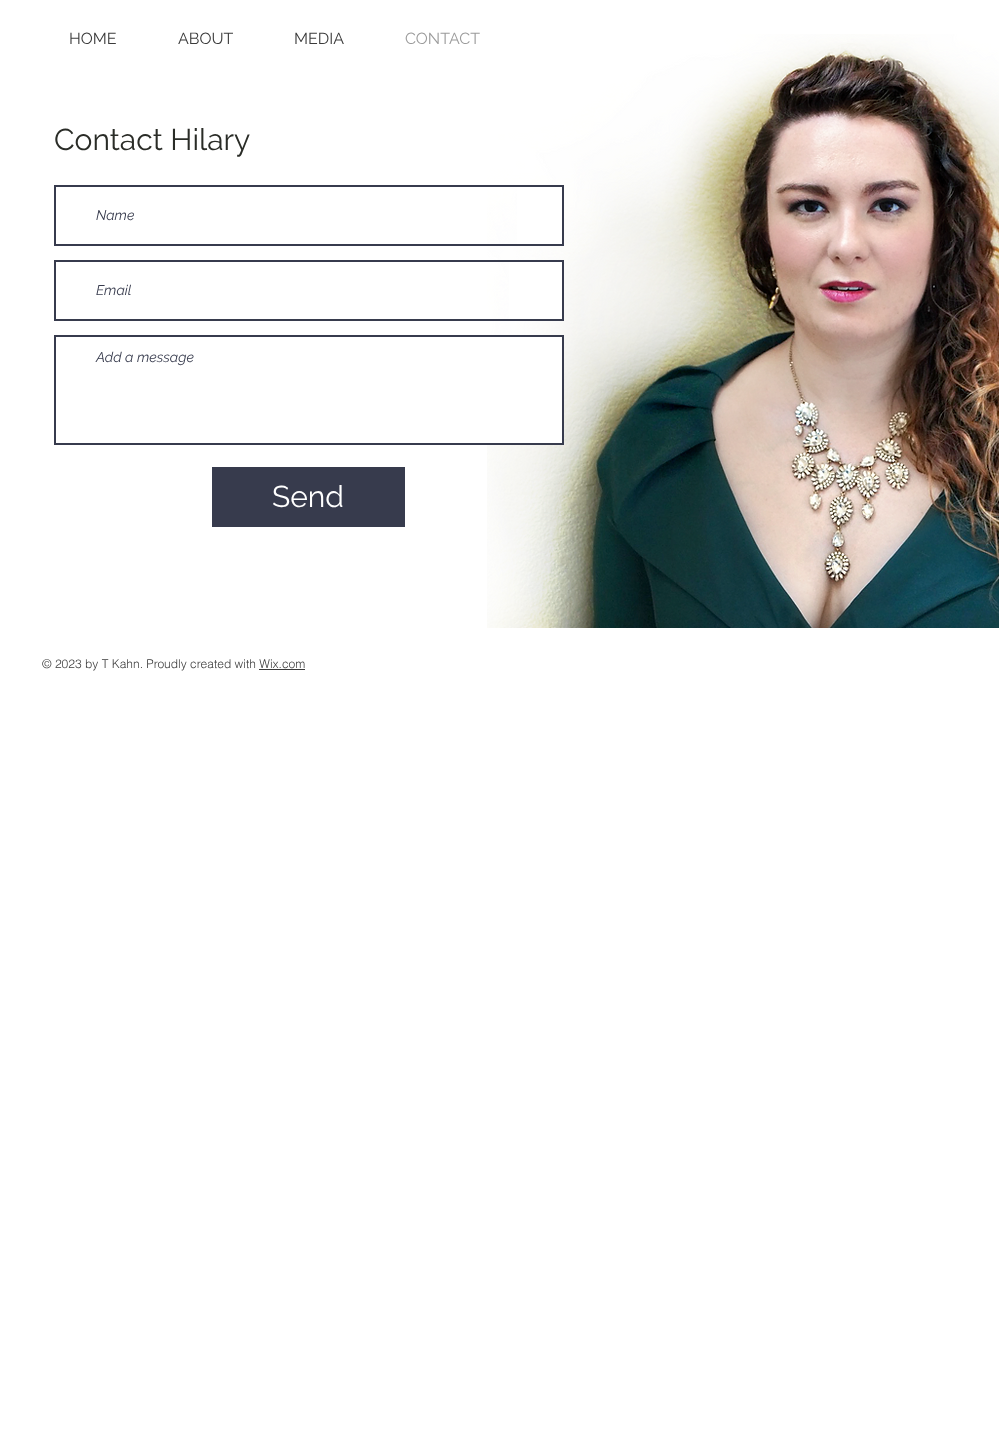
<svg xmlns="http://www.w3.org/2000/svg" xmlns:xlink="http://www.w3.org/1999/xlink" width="999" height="1438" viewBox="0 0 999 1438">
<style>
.cls-1{font:16px Raleway;fill:#3b3b3b}
.cls-2{font:16px Raleway;fill:#9c9c9c}
.cls-3{font:30px Raleway;fill:#2a2c27}
.cls-4{font:italic 14px Raleway;fill:#373b4d}
.cls-5{font:30px Raleway;fill:#ffffff}
.cls-6{font:300 12px helvetica;fill:#3b3b3b}
</style>
<rect width="100%" height="100%" fill="#ffffff"/>
<image xlink:href="image0.png" x="487" y="34" width="512" height="594"/>
<rect fill="#ffffff" x="517" y="187" width="45" height="57"/>
<rect fill="none" stroke="#373b4d" stroke-width="2" x="55" y="186" width="508" height="59"/>
<rect fill="#ffffff" x="509" y="262" width="53" height="57"/>
<rect fill="none" stroke="#373b4d" stroke-width="2" x="55" y="261" width="508" height="59"/>
<rect fill="#ffffff" x="487" y="337" width="75" height="106"/>
<rect fill="none" stroke="#373b4d" stroke-width="2" x="55" y="336" width="508" height="108"/>
<rect fill="#373b4d" x="212" y="467" width="193" height="60"/>
<rect fill="#3b3b3b" x="259" y="669" width="46" height="1"/>
<text class="cls-1" x="69" y="44">HOME</text>
<text class="cls-1" x="178" y="44">ABOUT</text>
<text class="cls-1" x="294" y="44">MEDIA</text>
<text class="cls-2" x="405" y="44">CONTACT</text>
<text class="cls-3" x="54" y="150">Contact Hilary</text>
<text class="cls-4" x="96" y="220">Name</text>
<text class="cls-4" x="96" y="295">Email</text>
<text class="cls-4" x="96" y="362">Add a message</text>
<text class="cls-5" x="272" y="507">Send</text>
<text class="cls-6" x="42" y="668">© 2023 by T Kahn. Proudly created with Wix.com</text>
</svg>
